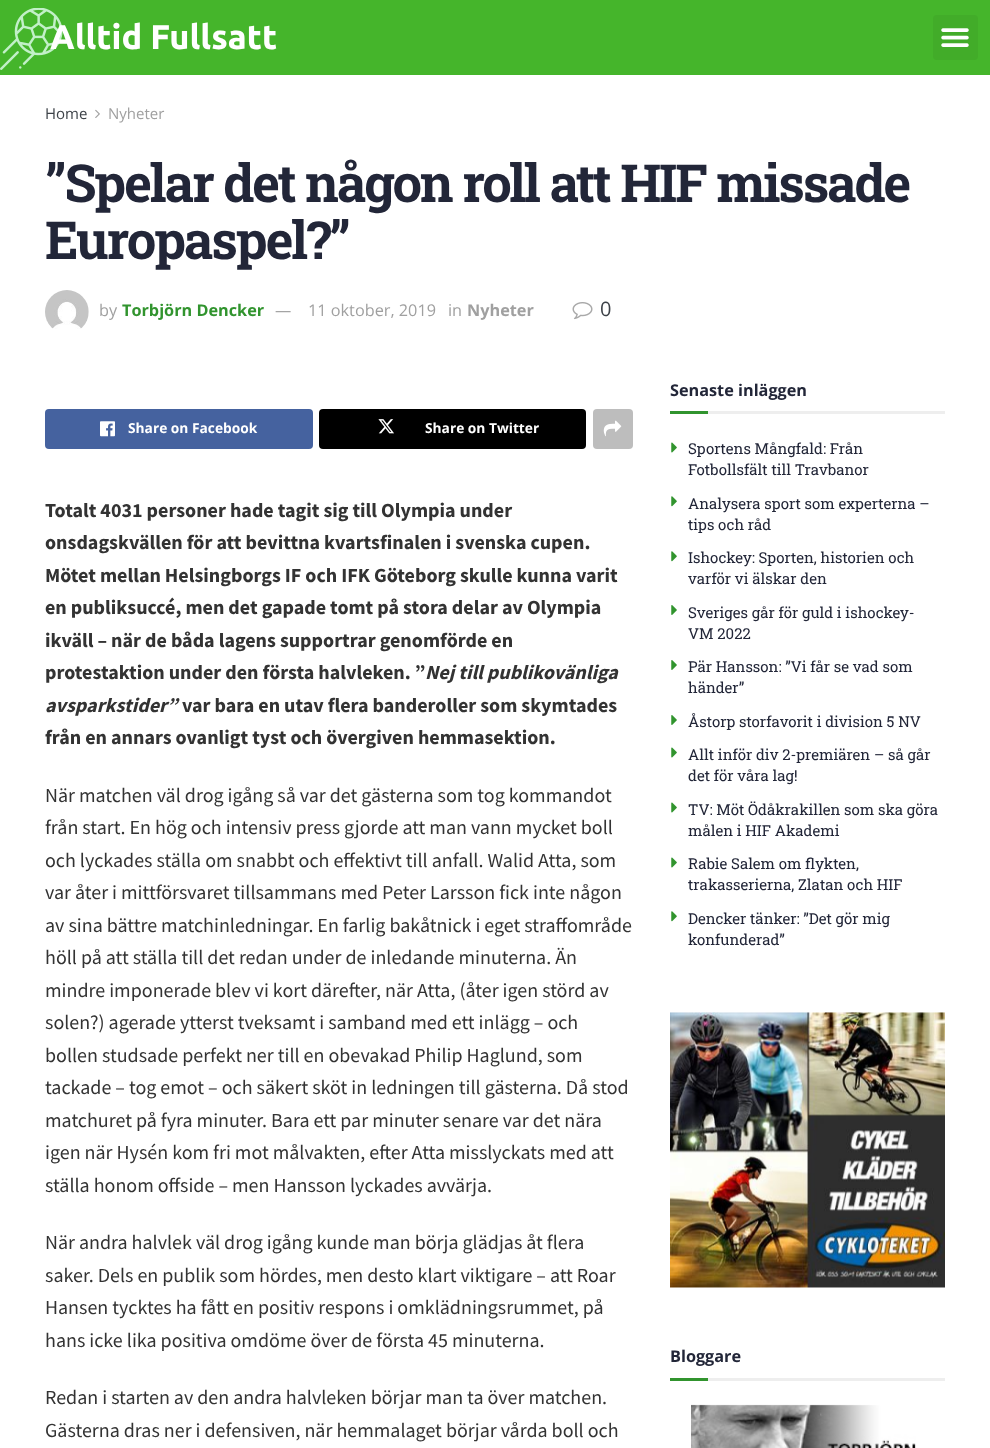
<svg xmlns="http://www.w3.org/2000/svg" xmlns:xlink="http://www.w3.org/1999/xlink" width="990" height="1448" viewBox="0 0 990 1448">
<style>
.cls-1{font:bold 34.25px Ubuntu;fill:#ffffff}
.cls-2{font:15px Open Sans;fill:#3d4248}
.cls-3{font:15px Open Sans;fill:#a0a0a0}
.cls-4{font:bold 52.5px Roboto Slab;letter-spacing:-2.1px;fill:#222638}
.cls-5{font:16.25px Open Sans;fill:#a0a0a0}
.cls-6{font:bold 16.25px Open Sans;fill:#31942e}
.cls-7{font:bold 16.25px Open Sans;fill:#a0a0a0}
.cls-8{font:20px Open Sans;fill:#3d4248}
.cls-9{font:bold 13.75px Open Sans;fill:#ffffff}
.cls-10{font:bold 20px Source Sans Pro;fill:#333333}
.cls-11{font:italic bold 20px Source Sans Pro;fill:#333333}
.cls-12{font:20px Source Sans Pro;fill:#333333}
.cls-13{font:bold 16.25px Open Sans;fill:#222638}
.cls-14{font:15px Roboto Slab;fill:#222638}
</style>
<rect width="100%" height="100%" fill="#ffffff"/>
<rect fill="#45b52b" x="0" y="0" width="990" height="75"/>
<image xlink:href="image0.png" x="0" y="8" width="63" height="62"/>
<rect fill="#42ac29" x="933" y="15" width="45" height="45" rx="4"/>
<image xlink:href="image1.png" x="941" y="28" width="28" height="19"/>
<image xlink:href="image2.png" x="95" y="109" width="5" height="9"/>
<image xlink:href="image3.png" x="45" y="290" width="44" height="39"/>
<image xlink:href="image4.png" x="572" y="302" width="21" height="18"/>
<rect fill="#45629f" x="45" y="409" width="268" height="40" rx="4"/>
<image xlink:href="image5.png" x="100" y="421" width="15" height="16"/>
<rect fill="#000000" x="319" y="409" width="267" height="40" rx="4"/>
<image xlink:href="image6.png" x="378" y="419" width="16" height="15"/>
<rect fill="#bdbdbd" x="593" y="409" width="40" height="40" rx="4"/>
<image xlink:href="image7.png" x="603" y="420" width="19" height="17"/>
<rect fill="#eeeeee" x="708" y="411" width="237" height="3"/>
<rect fill="#31942e" x="670" y="411" width="38" height="3"/>
<image xlink:href="image8.png" x="671" y="442" width="6" height="11"/>
<image xlink:href="image9.png" x="671" y="496" width="6" height="11"/>
<image xlink:href="image9.png" x="671" y="551" width="6" height="11"/>
<image xlink:href="image10.png" x="671" y="605" width="6" height="10"/>
<image xlink:href="image10.png" x="671" y="660" width="6" height="10"/>
<image xlink:href="image10.png" x="671" y="715" width="6" height="10"/>
<image xlink:href="image8.png" x="671" y="747" width="6" height="11"/>
<image xlink:href="image8.png" x="671" y="802" width="6" height="11"/>
<image xlink:href="image8.png" x="671" y="857" width="6" height="11"/>
<image xlink:href="image9.png" x="671" y="911" width="6" height="11"/>
<image xlink:href="image11.png" x="670" y="1012" width="275" height="276"/>
<rect fill="#eeeeee" x="708" y="1378" width="237" height="3"/>
<rect fill="#31942e" x="670" y="1378" width="38" height="3"/>
<image xlink:href="image12.png" x="691" y="1404" width="225" height="44"/>
<text class="cls-1" x="50" y="49">Alltid Fullsatt</text>
<text class="cls-2" x="45" y="119">Home</text>
<text class="cls-3" x="108" y="119">Nyheter</text>
<text class="cls-4"><tspan x="45" y="202">”Spelar det någon roll att HIF missade</tspan><tspan x="45" y="259">Europaspel?”</tspan></text>
<text class="cls-5" x="99" y="316">by</text>
<text class="cls-6" x="122" y="316">Torbjörn Dencker</text>
<text class="cls-5" x="275" y="316">—</text>
<text class="cls-5" x="308" y="316">11 oktober, 2019</text>
<text class="cls-5" x="448" y="316">in</text>
<text class="cls-7" x="467" y="316">Nyheter</text>
<text class="cls-8" x="600" y="316">0</text>
<text class="cls-9" x="128" y="433">Share on Facebook</text>
<text class="cls-9" x="425" y="433">Share on Twitter</text>
<text class="cls-10"><tspan x="45" y="517">Totalt 4031 personer hade tagit sig till Olympia under</tspan><tspan x="45" y="549">onsdagskvällen för att bevittna kvartsfinalen i svenska cupen.</tspan><tspan x="45" y="582">Mötet mellan Helsingborgs IF och IFK Göteborg skulle kunna varit</tspan><tspan x="45" y="614">en publiksuccé, men det gapade tomt på stora delar av Olympia</tspan><tspan x="45" y="647">ikväll – när de båda lagens supportrar genomförde en</tspan><tspan x="45" y="679">protestaktion under den första halvleken. ”</tspan></text>
<text class="cls-11" x="425" y="679">Nej till publikovänliga</text>
<text class="cls-11" x="45" y="712">avsparkstider”</text>
<text class="cls-10" x="182" y="712">var bara en utav flera banderoller som skymtades</text>
<text class="cls-10" x="45" y="744">från en annars ovanligt tyst och övergiven hemmasektion.</text>
<text class="cls-12"><tspan x="45" y="802">När matchen väl drog igång så var det gästerna som tog kommandot</tspan><tspan x="45" y="834">från start. En hög och intensiv press gjorde att man vann mycket boll</tspan><tspan x="45" y="867">och lyckades ställa om snabbt och effektivt till anfall. Walid Atta, som</tspan><tspan x="45" y="899">var åter i mittförsvaret tillsammans med Peter Larsson fick inte någon</tspan><tspan x="45" y="932">av sina bättre matchinledningar. En farlig bakåtnick i eget straffområde</tspan><tspan x="45" y="964">höll på att ställa till det redan under de inledande minuterna. Än</tspan><tspan x="45" y="997">mindre imponerade blev vi kort därefter, när Atta, (åter igen störd av</tspan><tspan x="45" y="1029">solen?) agerade ytterst tveksamt i samband med ett inlägg – och</tspan><tspan x="45" y="1062">bollen studsade perfekt ner till en obevakad Philip Haglund, som</tspan><tspan x="45" y="1094">tackade – tog emot – och säkert sköt in ledningen till gästerna. Då stod</tspan><tspan x="45" y="1127">matchuret på fyra minuter. Bara ett par minuter senare var det nära</tspan><tspan x="45" y="1159">igen när Hysén kom fri mot målvakten, efter Atta misslyckats med att</tspan><tspan x="45" y="1192">ställa honom offside – men Hansson lyckades avvärja.</tspan></text>
<text class="cls-12"><tspan x="45" y="1249">När andra halvlek väl drog igång kunde man börja glädjas åt flera</tspan><tspan x="45" y="1282">saker. Dels en publik som hördes, men desto klart viktigare – att Roar</tspan><tspan x="45" y="1314">Hansen tycktes ha fått en positiv respons i omklädningsrummet, på</tspan><tspan x="45" y="1347">hans icke lika positiva omdöme över de första 45 minuterna.</tspan></text>
<text class="cls-12"><tspan x="45" y="1404">Redan i starten av den andra halvleken börjar man ta över matchen.</tspan><tspan x="45" y="1437">Gästerna dras ner i defensiven, när hemmalaget börjar vårda boll och</tspan></text>
<text class="cls-13" x="670" y="396">Senaste inläggen</text>
<text class="cls-14"><tspan x="688" y="454">Sportens Mångfald: Från</tspan><tspan x="688" y="475">Fotbollsfält till Travbanor</tspan></text>
<text class="cls-14"><tspan x="688" y="509">Analysera sport som experterna –</tspan><tspan x="688" y="530">tips och råd</tspan></text>
<text class="cls-14"><tspan x="688" y="563">Ishockey: Sporten, historien och</tspan><tspan x="688" y="584">varför vi älskar den</tspan></text>
<text class="cls-14"><tspan x="688" y="618">Sveriges går för guld i ishockey-</tspan><tspan x="688" y="639">VM 2022</tspan></text>
<text class="cls-14"><tspan x="688" y="672">Pär Hansson: ”Vi får se vad som</tspan><tspan x="688" y="693">händer”</tspan></text>
<text class="cls-14" x="688" y="727">Åstorp storfavorit i division 5 NV</text>
<text class="cls-14"><tspan x="688" y="760">Allt inför div 2-premiären – så går</tspan><tspan x="688" y="781">det för våra lag!</tspan></text>
<text class="cls-14"><tspan x="688" y="815">TV: Möt Ödåkrakillen som ska göra</tspan><tspan x="688" y="836">målen i HIF Akademi</tspan></text>
<text class="cls-14"><tspan x="688" y="869">Rabie Salem om flykten,</tspan><tspan x="688" y="890">trakasserierna, Zlatan och HIF</tspan></text>
<text class="cls-14"><tspan x="688" y="924">Dencker tänker: ”Det gör mig</tspan><tspan x="688" y="945">konfunderad”</tspan></text>
<text class="cls-13" x="670" y="1362">Bloggare</text>
</svg>
